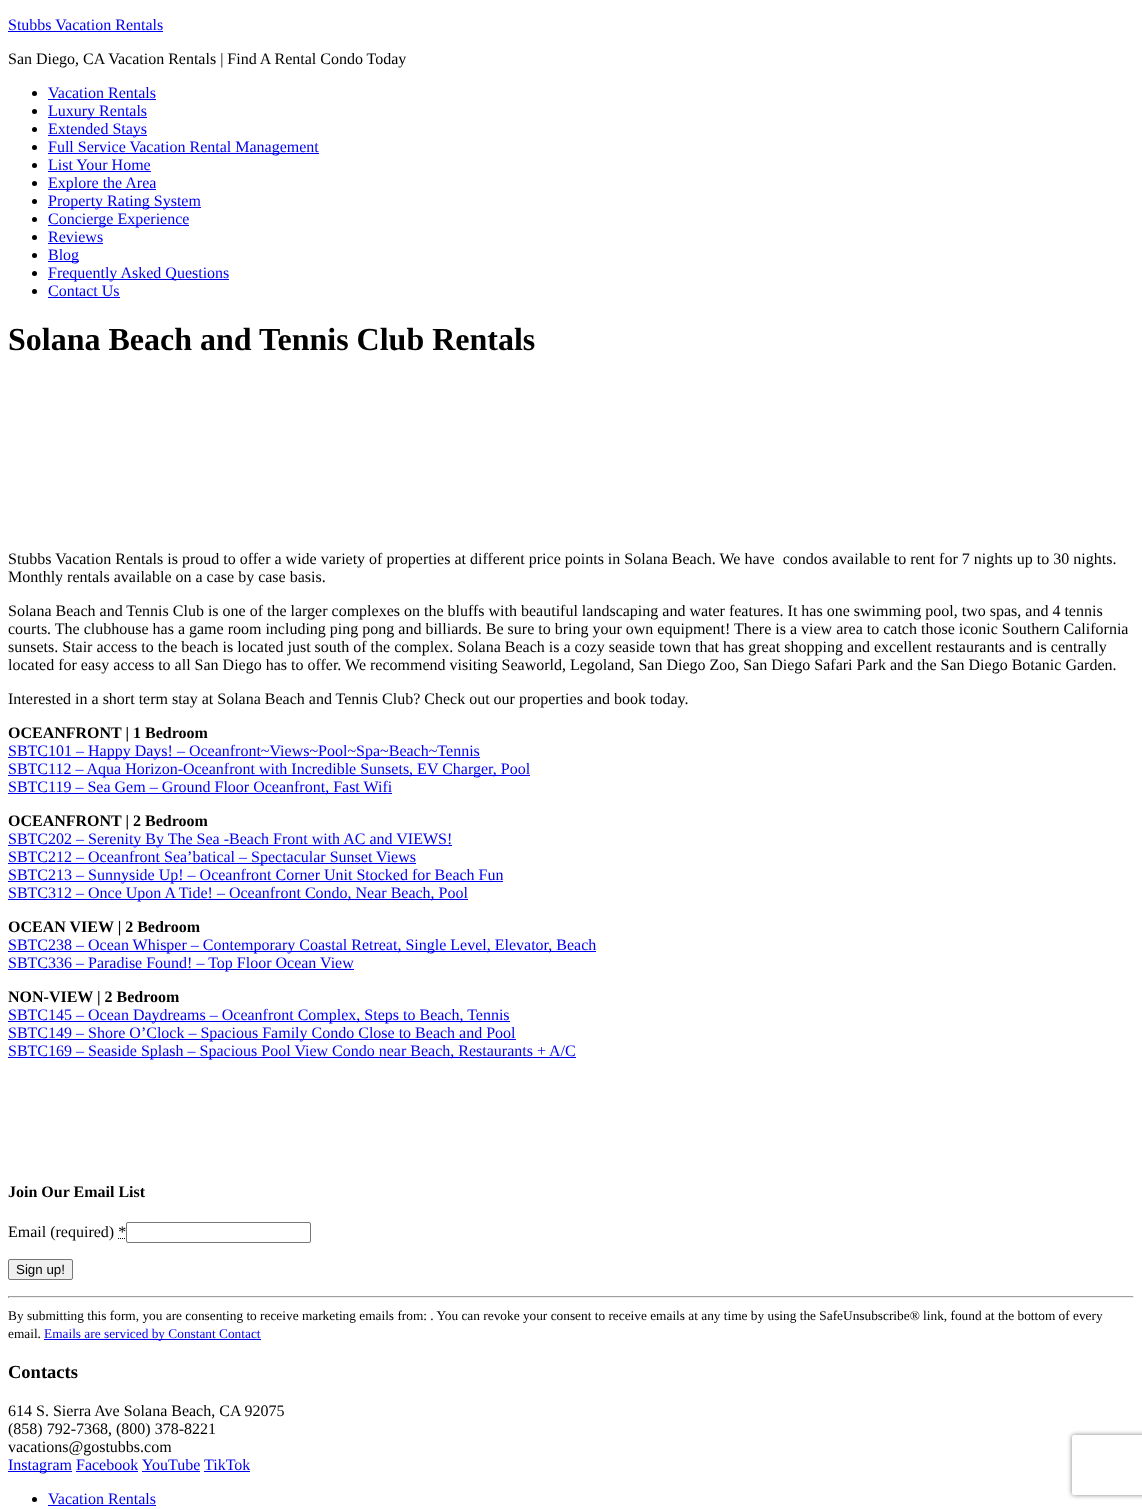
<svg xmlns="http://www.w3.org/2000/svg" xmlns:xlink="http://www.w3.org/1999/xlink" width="1142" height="1509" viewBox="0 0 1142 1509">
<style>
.cls-1{font:16px Liberation Serif;fill:#0000ee}
.cls-2{font:16px Liberation Serif;fill:#000000}
.cls-3{font:bold 32px Liberation Serif;fill:#000000}
.cls-4{font:bold 16px Liberation Serif;fill:#000000}
.cls-5{font:13.33px Liberation Sans;fill:#000000}
.cls-6{font:13.33px Liberation Serif;fill:#000000}
.cls-7{font:13.33px Liberation Serif;fill:#0000ee}
.cls-8{font:bold 18.5px Liberation Serif;fill:#000000}
</style>
<defs>
<clipPath id="clip1"><path d="M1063 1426H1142V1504H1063ZM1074 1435H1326C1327 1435 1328 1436 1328 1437V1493C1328 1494 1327 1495 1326 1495H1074C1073 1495 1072 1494 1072 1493V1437C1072 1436 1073 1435 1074 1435Z" clip-rule="evenodd"/></clipPath>
</defs>
<rect width="100%" height="100%" fill="#ffffff"/>
<rect fill="#0000ee" x="8" y="31" width="155" height="1"/>
<circle fill="#000000" cx="34.5" cy="93.5" r="2.5"/>
<rect fill="#0000ee" x="48" y="99" width="108" height="1"/>
<circle fill="#000000" cx="34.5" cy="111.5" r="2.5"/>
<rect fill="#0000ee" x="48" y="117" width="99" height="1"/>
<circle fill="#000000" cx="34.5" cy="129.5" r="2.5"/>
<rect fill="#0000ee" x="48" y="135" width="99" height="1"/>
<circle fill="#000000" cx="34.5" cy="147.5" r="2.5"/>
<rect fill="#0000ee" x="48" y="153" width="271" height="1"/>
<circle fill="#000000" cx="34.5" cy="165.5" r="2.5"/>
<rect fill="#0000ee" x="48" y="171" width="103" height="1"/>
<circle fill="#000000" cx="34.5" cy="183.5" r="2.5"/>
<rect fill="#0000ee" x="48" y="189" width="108" height="1"/>
<circle fill="#000000" cx="34.5" cy="201.5" r="2.5"/>
<rect fill="#0000ee" x="48" y="207" width="153" height="1"/>
<circle fill="#000000" cx="34.5" cy="219.5" r="2.5"/>
<rect fill="#0000ee" x="48" y="225" width="141" height="1"/>
<circle fill="#000000" cx="34.5" cy="237.5" r="2.5"/>
<rect fill="#0000ee" x="48" y="243" width="55" height="1"/>
<circle fill="#000000" cx="34.5" cy="255.5" r="2.5"/>
<rect fill="#0000ee" x="48" y="261" width="31" height="1"/>
<circle fill="#000000" cx="34.5" cy="273.5" r="2.5"/>
<rect fill="#0000ee" x="48" y="279" width="181" height="1"/>
<circle fill="#000000" cx="34.5" cy="291.5" r="2.5"/>
<rect fill="#0000ee" x="48" y="297" width="72" height="1"/>
<rect fill="#0000ee" x="8" y="757" width="472" height="1"/>
<rect fill="#0000ee" x="8" y="775" width="522" height="1"/>
<rect fill="#0000ee" x="8" y="793" width="384" height="1"/>
<rect fill="#0000ee" x="8" y="845" width="444" height="1"/>
<rect fill="#0000ee" x="8" y="863" width="408" height="1"/>
<rect fill="#0000ee" x="8" y="881" width="495" height="1"/>
<rect fill="#0000ee" x="8" y="899" width="460" height="1"/>
<rect fill="#0000ee" x="8" y="951" width="588" height="1"/>
<rect fill="#0000ee" x="8" y="969" width="346" height="1"/>
<rect fill="#0000ee" x="8" y="1021" width="502" height="1"/>
<rect fill="#0000ee" x="8" y="1039" width="508" height="1"/>
<rect fill="#0000ee" x="8" y="1057" width="568" height="1"/>
<path fill="none" stroke="#000000" stroke-dasharray="1 1" d="M118 1238.5H126"/>
<rect fill="none" stroke="#767676" x="126.5" y="1222.5" width="184" height="20" rx="1.5"/>
<rect fill="#efefef" stroke="#767676" x="8.5" y="1259.5" width="64" height="20" rx="1.5"/>
<rect fill="#9f9f9f" x="8" y="1296" width="1126" height="1"/>
<rect fill="#eeeeee" x="1133" y="1296" width="1" height="2"/>
<rect fill="#eeeeee" x="8" y="1297" width="1126" height="1"/>
<rect fill="#9f9f9f" x="8" y="1296" width="1" height="2"/>
<rect fill="#0000ee" x="44" y="1339" width="217" height="1"/>
<rect fill="#0000ee" x="8" y="1471" width="64" height="1"/>
<rect fill="#0000ee" x="142" y="1471" width="58" height="1"/>
<rect fill="#0000ee" x="76" y="1471" width="62" height="1"/>
<rect fill="#0000ee" x="204" y="1471" width="46" height="1"/>
<circle fill="#000000" cx="34.5" cy="1499.5" r="2.5"/>
<rect fill="#0000ee" x="48" y="1505" width="108" height="1"/>
<g clip-path="url(#clip1)">
<rect fill="#808080" filter="blur(2.5px)" x="1072" y="1435" width="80" height="60" rx="2"/>
</g>
<text class="cls-1" x="8" y="30">Stubbs Vacation Rentals</text>
<text class="cls-2" x="8" y="64">San Diego, CA Vacation Rentals | Find A Rental Condo Today</text>
<text class="cls-1"><tspan x="48" y="98">Vacation Rentals</tspan><tspan x="48" y="116">Luxury Rentals</tspan><tspan x="48" y="134">Extended Stays</tspan><tspan x="48" y="152">Full Service Vacation Rental Management</tspan><tspan x="48" y="170">List Your Home</tspan><tspan x="48" y="188">Explore the Area</tspan><tspan x="48" y="206">Property Rating System</tspan><tspan x="48" y="224">Concierge Experience</tspan><tspan x="48" y="242">Reviews</tspan><tspan x="48" y="260">Blog</tspan><tspan x="48" y="278">Frequently Asked Questions</tspan><tspan x="48" y="296">Contact Us</tspan></text>
<text class="cls-3" x="8" y="350">Solana Beach and Tennis Club Rentals</text>
<text class="cls-2" xml:space="preserve"><tspan x="8" y="564">Stubbs Vacation Rentals is proud to offer a wide variety of properties at different price points in Solana Beach. We have  condos available to rent for 7 nights up to 30 nights.</tspan><tspan x="8" y="582">Monthly rentals available on a case by case basis.</tspan></text>
<text class="cls-2"><tspan x="8" y="616">Solana Beach and Tennis Club is one of the larger complexes on the bluffs with beautiful landscaping and water features. It has one swimming pool, two spas, and 4 tennis</tspan><tspan x="8" y="634">courts. The clubhouse has a game room including ping pong and billiards. Be sure to bring your own equipment! There is a view area to catch those iconic Southern California</tspan><tspan x="8" y="652">sunsets. Stair access to the beach is located just south of the complex. Solana Beach is a cozy seaside town that has great shopping and excellent restaurants and is centrally</tspan><tspan x="8" y="670">located for easy access to all San Diego has to offer. We recommend visiting Seaworld, Legoland, San Diego Zoo, San Diego Safari Park and the San Diego Botanic Garden.</tspan></text>
<text class="cls-2" x="8" y="704">Interested in a short term stay at Solana Beach and Tennis Club? Check out our properties and book today.</text>
<text class="cls-4" x="8" y="738">OCEANFRONT | 1 Bedroom</text>
<text class="cls-1"><tspan x="8" y="756">SBTC101 – Happy Days! – Oceanfront~Views~Pool~Spa~Beach~Tennis</tspan><tspan x="8" y="774">SBTC112 – Aqua Horizon-Oceanfront with Incredible Sunsets, EV Charger, Pool</tspan><tspan x="8" y="792">SBTC119 – Sea Gem – Ground Floor Oceanfront, Fast Wifi</tspan></text>
<text class="cls-4" x="8" y="826">OCEANFRONT | 2 Bedroom</text>
<text class="cls-1"><tspan x="8" y="844">SBTC202 – Serenity By The Sea -Beach Front with AC and VIEWS!</tspan><tspan x="8" y="862">SBTC212 – Oceanfront Sea’batical – Spectacular Sunset Views</tspan><tspan x="8" y="880">SBTC213 – Sunnyside Up! – Oceanfront Corner Unit Stocked for Beach Fun</tspan><tspan x="8" y="898">SBTC312 – Once Upon A Tide! – Oceanfront Condo, Near Beach, Pool</tspan></text>
<text class="cls-4" x="8" y="932">OCEAN VIEW | 2 Bedroom</text>
<text class="cls-1"><tspan x="8" y="950">SBTC238 – Ocean Whisper – Contemporary Coastal Retreat, Single Level, Elevator, Beach</tspan><tspan x="8" y="968">SBTC336 – Paradise Found! – Top Floor Ocean View</tspan></text>
<text class="cls-4" x="8" y="1002">NON-VIEW | 2 Bedroom</text>
<text class="cls-1"><tspan x="8" y="1020">SBTC145 – Ocean Daydreams – Oceanfront Complex, Steps to Beach, Tennis</tspan><tspan x="8" y="1038">SBTC149 – Shore O’Clock – Spacious Family Condo Close to Beach and Pool</tspan><tspan x="8" y="1056">SBTC169 – Seaside Splash – Spacious Pool View Condo near Beach, Restaurants + A/C</tspan></text>
<text class="cls-4" x="8" y="1197">Join Our Email List</text>
<text class="cls-2" x="8" y="1237">Email (required) *</text>
<text class="cls-5" x="16" y="1274">Sign up!</text>
<text class="cls-6"><tspan x="8" y="1320">By submitting this form, you are consenting to receive marketing emails from: . You can revoke your consent to receive emails at any time by using the SafeUnsubscribe® link, found at the bottom of every</tspan><tspan x="8" y="1338">email.</tspan></text>
<text class="cls-7" x="44" y="1338">Emails are serviced by Constant Contact</text>
<text class="cls-8" x="8" y="1378">Contacts</text>
<text class="cls-2"><tspan x="8" y="1416">614 S. Sierra Ave Solana Beach, CA 92075</tspan><tspan x="8" y="1434">(858) 792-7368, (800) 378-8221</tspan><tspan x="8" y="1452">vacations@gostubbs.com</tspan></text>
<text class="cls-1" x="8" y="1470">Instagram Facebook</text>
<text class="cls-1" x="142" y="1470">YouTube TikTok</text>
<text class="cls-1" x="48" y="1504">Vacation Rentals</text>
</svg>
